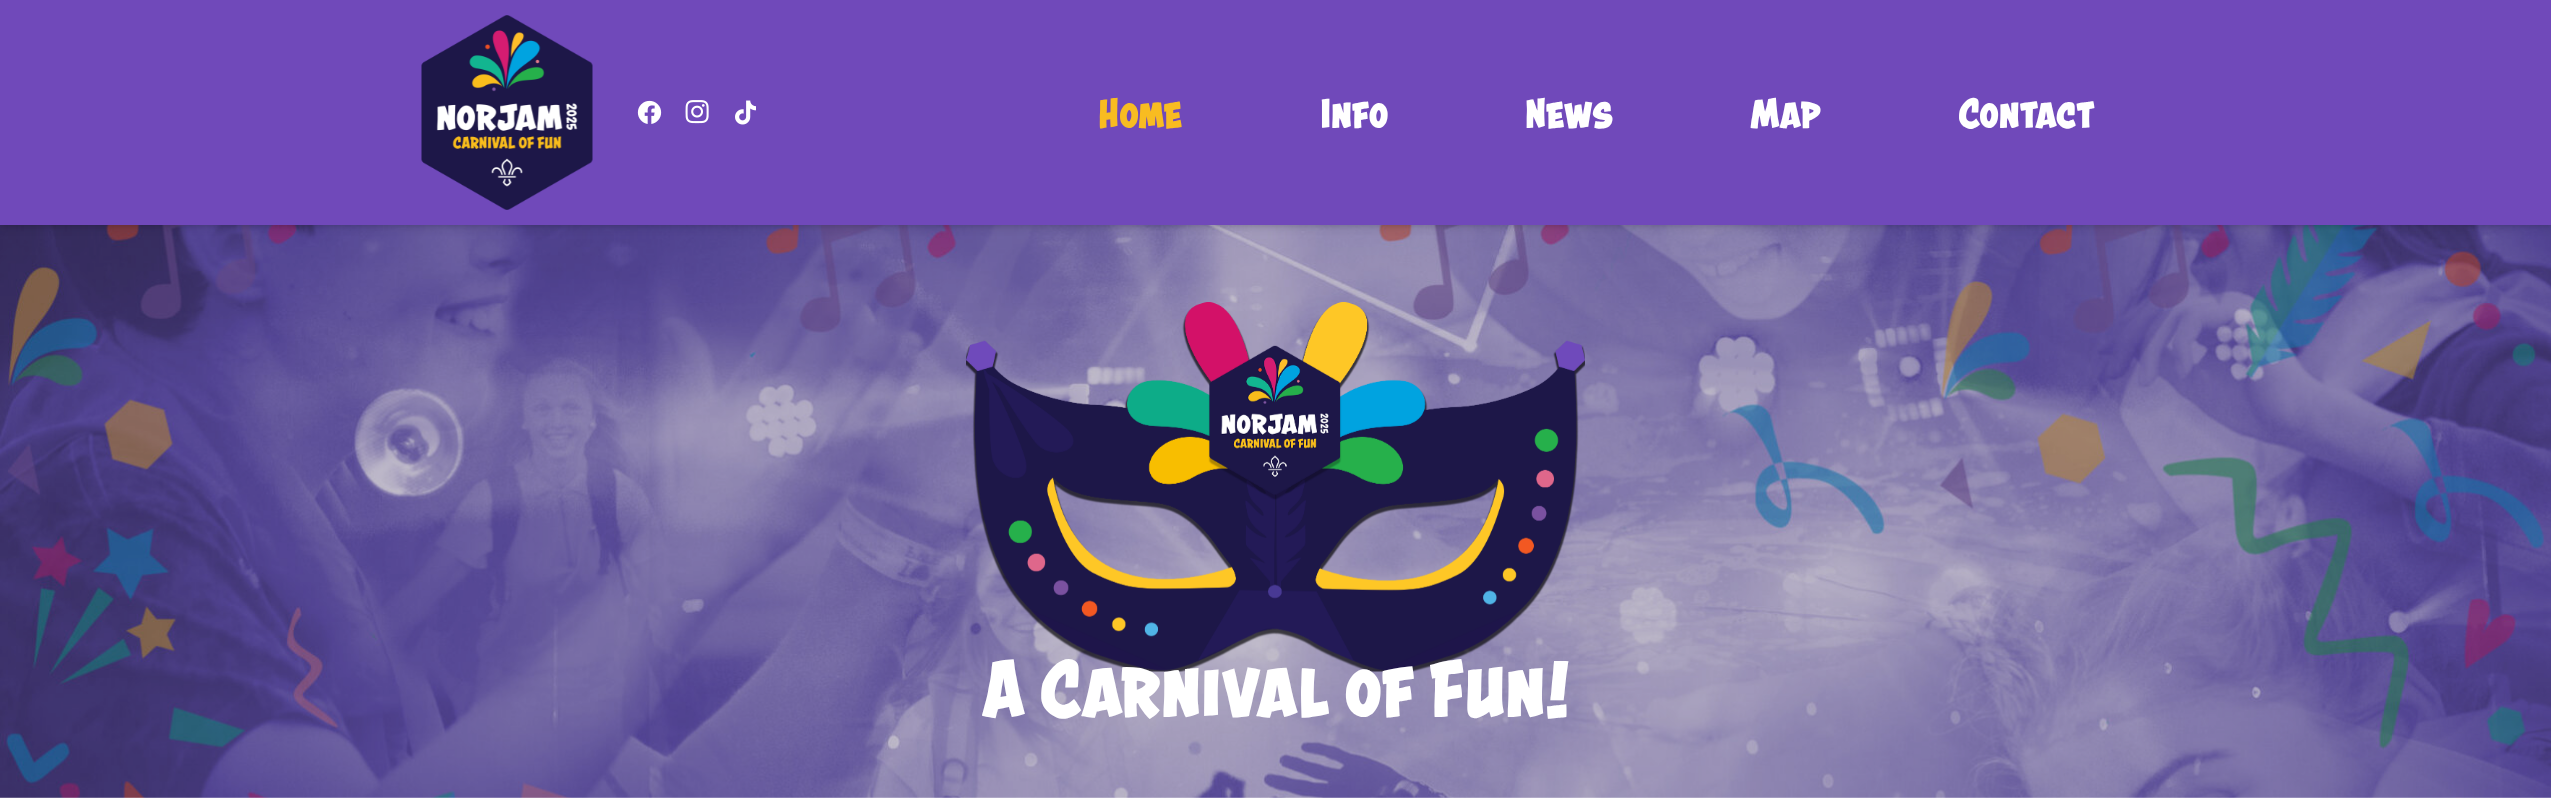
<svg xmlns="http://www.w3.org/2000/svg" xmlns:xlink="http://www.w3.org/1999/xlink" width="2551" height="798" viewBox="0 0 2551 798">
<style>
.cls-1{font:bold 45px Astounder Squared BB;fill:#f8bc21}
.cls-2{font:bold 45px Astounder Squared BB;fill:#ffffff}
.cls-3{font:bold 86px Astounder Squared BB;fill:#ffffff}
</style>
<rect width="100%" height="100%" fill="#ffffff"/>
<image xlink:href="image4.png" x="0" y="225" width="2551" height="573"/>
<rect fill="#000000" fill-opacity="0.05" filter="blur(1px)" x="2" y="5" width="2548" height="222"/>
<rect fill="#000000" fill-opacity="0.1" filter="blur(4px)" x="2" y="6" width="2548" height="222"/>
<rect fill="#7049ba" x="0" y="0" width="2551" height="225"/>
<image xlink:href="image0.png" x="421" y="15" width="172" height="195"/>
<image xlink:href="image1.png" x="637" y="100" width="25" height="24"/>
<image xlink:href="image2.png" x="685" y="100" width="24" height="24"/>
<image xlink:href="image3.png" x="735" y="100" width="21" height="25"/>
<image xlink:href="image5.png" x="966" y="302" width="619" height="370"/>
<text class="cls-1" x="1098" y="128">Home</text>
<text class="cls-2" x="1320" y="128">Info</text>
<text class="cls-2" x="1525" y="128">News</text>
<text class="cls-2" x="1750" y="128">Map</text>
<text class="cls-2" x="1958" y="128">Contact</text>
<text class="cls-3" x="981" y="717">A Carnival of Fun!</text>
</svg>
